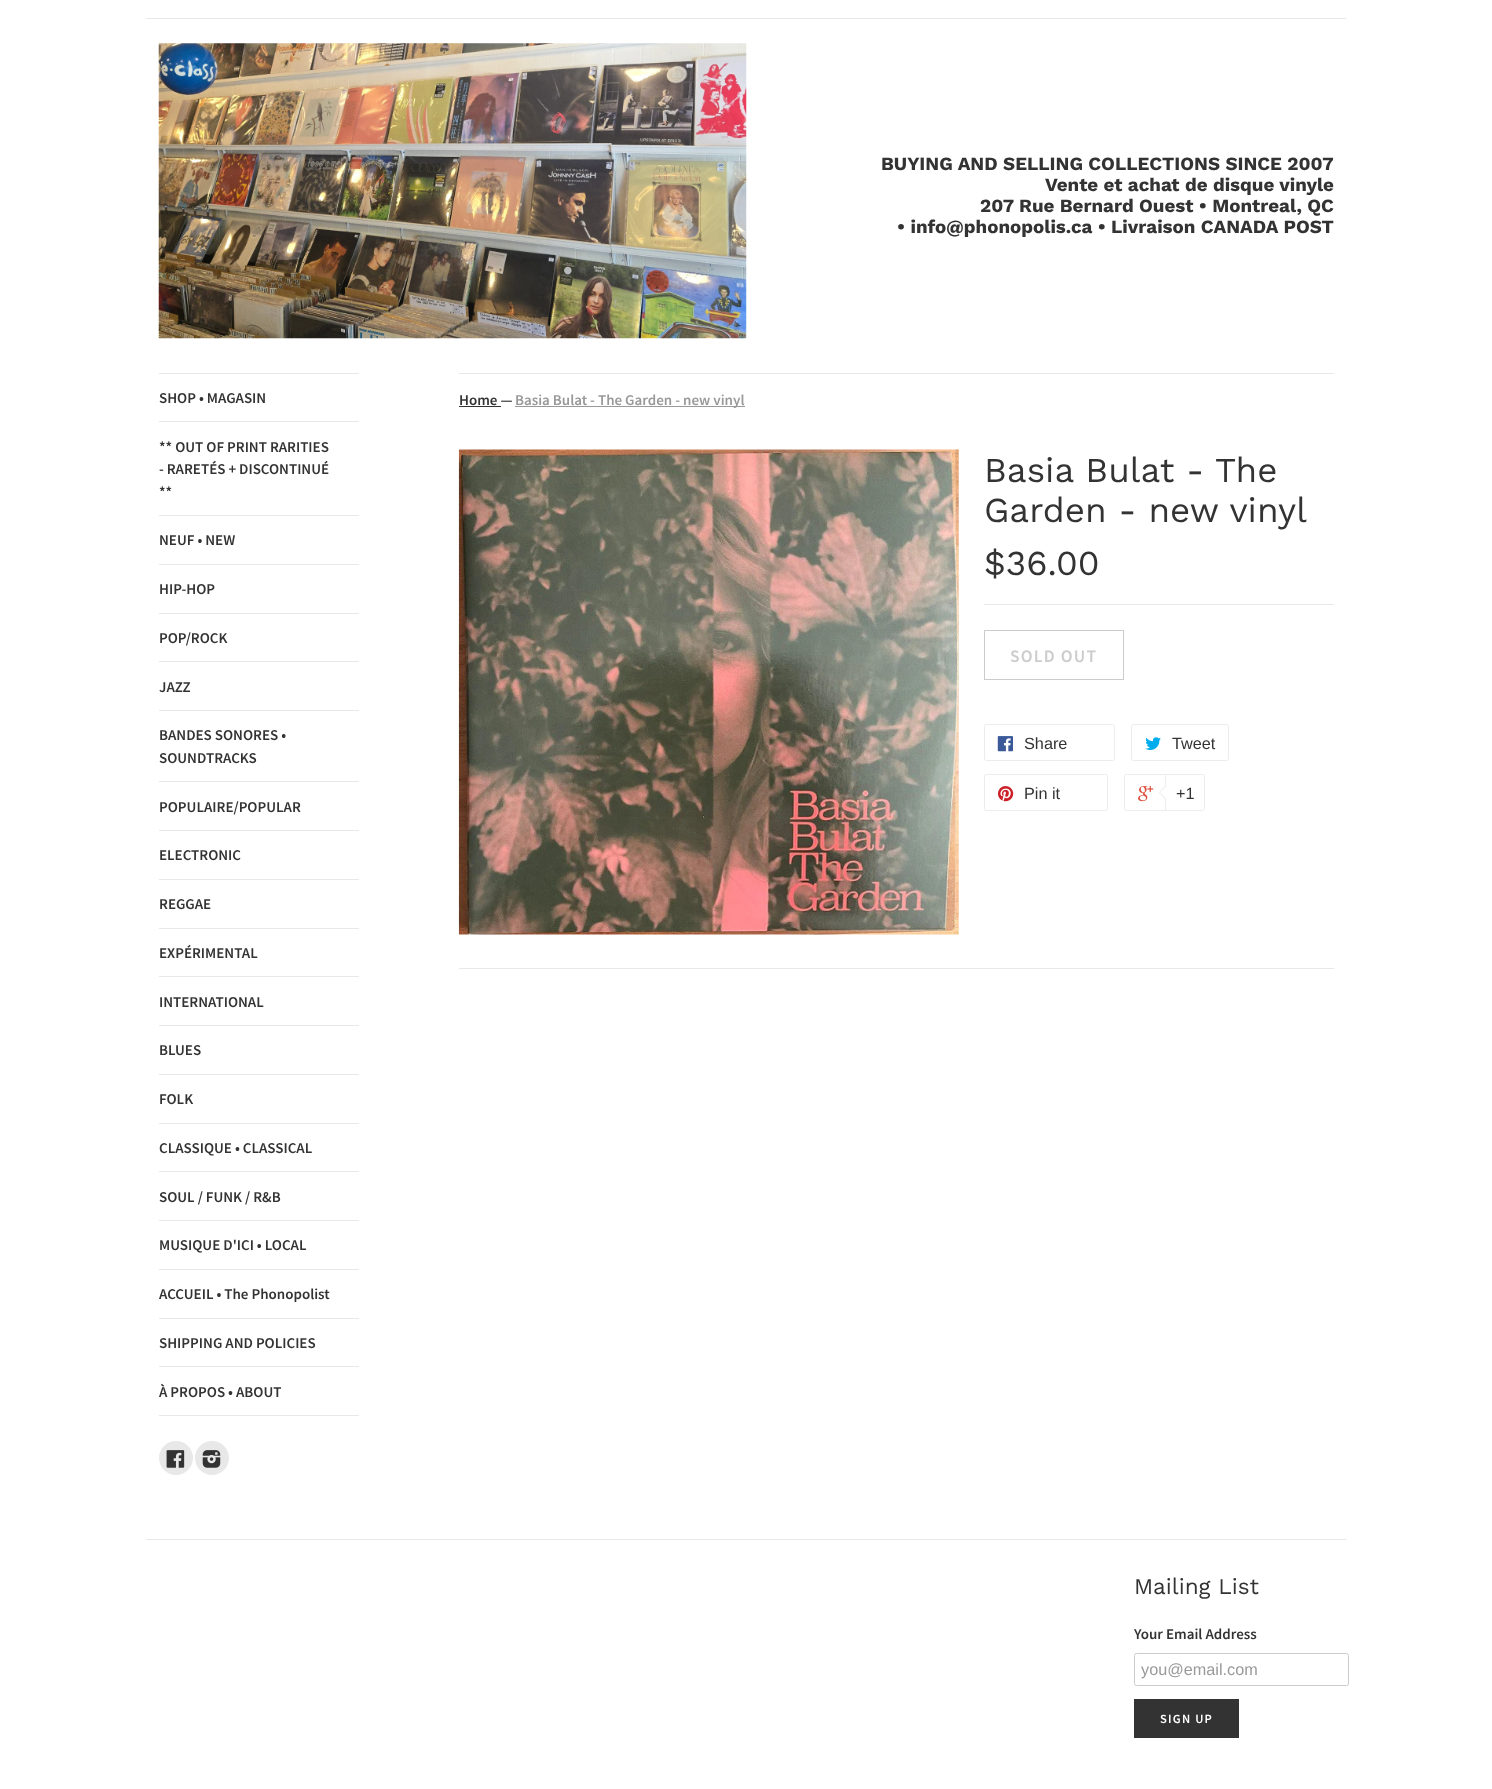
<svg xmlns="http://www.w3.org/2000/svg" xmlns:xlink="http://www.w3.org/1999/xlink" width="1492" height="1789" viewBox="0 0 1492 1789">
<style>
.cls-1{font:bold 18.75px Work Sans;fill:#333333}
.cls-2{font:600 15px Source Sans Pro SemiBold;fill:#333333}
.cls-3{font:600 15px Source Sans Pro SemiBold;fill:#999999}
.cls-4{font:35px Work Sans;fill:#333333}
.cls-5{font:600 17.5px Source Sans Pro SemiBold;letter-spacing:1.25px;fill:#cccccc}
.cls-6{font:16.25px Liberation Sans;fill:#333333}
.cls-7{font:22.5px Work Sans;fill:#333333}
.cls-8{font:16.25px Liberation Sans;fill:#999999}
.cls-9{font:600 12.5px Source Sans Pro SemiBold;letter-spacing:1.25px;fill:#ffffff}
</style>
<rect width="100%" height="100%" fill="#ffffff"/>
<rect fill="#e8e8e8" x="146" y="18" width="1200" height="1"/>
<image xlink:href="image0.png" x="158" y="43" width="589" height="296"/>
<rect fill="#e8e8e8" x="159" y="1415" width="200" height="1"/>
<rect fill="#e8e8e8" x="159" y="373" width="200" height="1"/>
<rect fill="#e8e8e8" x="159" y="421" width="200" height="1"/>
<rect fill="#e8e8e8" x="159" y="515" width="200" height="1"/>
<rect fill="#e8e8e8" x="159" y="564" width="200" height="1"/>
<rect fill="#e8e8e8" x="159" y="613" width="200" height="1"/>
<rect fill="#e8e8e8" x="159" y="661" width="200" height="1"/>
<rect fill="#e8e8e8" x="159" y="710" width="200" height="1"/>
<rect fill="#e8e8e8" x="159" y="781" width="200" height="1"/>
<rect fill="#e8e8e8" x="159" y="830" width="200" height="1"/>
<rect fill="#e8e8e8" x="159" y="879" width="200" height="1"/>
<rect fill="#e8e8e8" x="159" y="928" width="200" height="1"/>
<rect fill="#e8e8e8" x="159" y="976" width="200" height="1"/>
<rect fill="#e8e8e8" x="159" y="1025" width="200" height="1"/>
<rect fill="#e8e8e8" x="159" y="1074" width="200" height="1"/>
<rect fill="#e8e8e8" x="159" y="1123" width="200" height="1"/>
<rect fill="#e8e8e8" x="159" y="1171" width="200" height="1"/>
<rect fill="#e8e8e8" x="159" y="1220" width="200" height="1"/>
<rect fill="#e8e8e8" x="159" y="1269" width="200" height="1"/>
<rect fill="#e8e8e8" x="159" y="1318" width="200" height="1"/>
<rect fill="#e8e8e8" x="159" y="1366" width="200" height="1"/>
<circle fill="#e8e8e8" cx="176" cy="1458" r="17"/>
<image xlink:href="image1.png" x="166" y="1450" width="19" height="18"/>
<circle fill="#e8e8e8" cx="212" cy="1458" r="17"/>
<image xlink:href="image2.png" x="202" y="1450" width="19" height="18"/>
<rect fill="#e8e8e8" x="459" y="373" width="875" height="1"/>
<rect fill="#333333" x="459" y="406" width="42" height="1"/>
<rect fill="#999999" x="515" y="406" width="230" height="1"/>
<image xlink:href="image3.png" x="458" y="449" width="501" height="486"/>
<rect fill="#e8e8e8" x="984" y="604" width="350" height="1"/>
<rect fill="none" stroke="#cccccc" x="984.5" y="630.5" width="139" height="49"/>
<rect fill="none" stroke="#ececec" x="984.5" y="724.5" width="130" height="36" rx="2"/>
<image xlink:href="image4.png" x="997" y="736" width="16" height="16"/>
<rect fill="none" stroke="#ececec" x="1131.5" y="724.5" width="97" height="36" rx="2"/>
<image xlink:href="image5.png" x="1145" y="737" width="16" height="13"/>
<rect fill="none" stroke="#ececec" x="984.5" y="774.5" width="123" height="36" rx="2"/>
<image xlink:href="image6.png" x="998" y="786" width="16" height="16"/>
<rect fill="none" stroke="#ececec" x="1124.5" y="774.5" width="79" height="36" rx="2"/>
<image xlink:href="image7.png" x="1138" y="786" width="16" height="16"/>
<path fill="#ffffff" stroke="#ececec" d="M1165.5 774.5H1202.5C1203.5 774.5 1204.5 775.5 1204.5 776.5V808.5C1204.5 809.5 1203.5 810.5 1202.5 810.5H1165.5Z"/>
<path fill="#ececec" d="M1166 785V800L1159 792.5Z"/>
<path fill="#ffffff" d="M1167.5 785V800L1160 792.5Z"/>
<rect fill="#e8e8e8" x="459" y="968" width="875" height="1"/>
<rect fill="#e8e8e8" x="146" y="1539" width="1200" height="1"/>
<rect fill="none" stroke="#cccccc" x="1134.5" y="1653.5" width="214" height="32" rx="2"/>
<rect fill="#333333" x="1134" y="1699" width="105" height="39"/>
<text class="cls-1" x="881" y="170">BUYING AND SELLING COLLECTIONS SINCE 2007</text>
<text class="cls-1" x="1045" y="191">Vente et achat de disque vinyle</text>
<text class="cls-1" x="980" y="212">207 Rue Bernard Ouest • Montreal, QC</text>
<text class="cls-1" x="897" y="233">• info@phonopolis.ca • Livraison CANADA POST</text>
<text class="cls-2" x="159" y="403">SHOP • MAGASIN</text>
<text class="cls-2"><tspan x="159" y="452">** OUT OF PRINT RARITIES</tspan><tspan x="159" y="474">- RARETÉS + DISCONTINUÉ</tspan><tspan x="159" y="497">**</tspan></text>
<text class="cls-2" x="159" y="545">NEUF • NEW</text>
<text class="cls-2" x="159" y="594">HIP-HOP</text>
<text class="cls-2" x="159" y="643">POP/ROCK</text>
<text class="cls-2" x="159" y="692">JAZZ</text>
<text class="cls-2"><tspan x="159" y="740">BANDES SONORES •</tspan><tspan x="159" y="763">SOUNDTRACKS</tspan></text>
<text class="cls-2" x="159" y="812">POPULAIRE/POPULAR</text>
<text class="cls-2" x="159" y="860">ELECTRONIC</text>
<text class="cls-2" x="159" y="909">REGGAE</text>
<text class="cls-2" x="159" y="958">EXPÉRIMENTAL</text>
<text class="cls-2" x="159" y="1007">INTERNATIONAL</text>
<text class="cls-2" x="159" y="1055">BLUES</text>
<text class="cls-2" x="159" y="1104">FOLK</text>
<text class="cls-2" x="159" y="1153">CLASSIQUE • CLASSICAL</text>
<text class="cls-2" x="159" y="1202">SOUL / FUNK / R&amp;B</text>
<text class="cls-2" x="159" y="1250">MUSIQUE D'ICI • LOCAL</text>
<text class="cls-2" x="159" y="1299">ACCUEIL • The Phonopolist</text>
<text class="cls-2" x="159" y="1348">SHIPPING AND POLICIES</text>
<text class="cls-2" x="159" y="1397">À PROPOS • ABOUT</text>
<text class="cls-2" x="459" y="405">Home —</text>
<text class="cls-3" x="515" y="405">Basia Bulat - The Garden - new vinyl</text>
<text class="cls-4"><tspan x="984" y="482">Basia Bulat - The</tspan><tspan x="984" y="522">Garden - new vinyl</tspan><tspan x="984" y="575">$36.00</tspan></text>
<text class="cls-5" x="1010" y="662">SOLD OUT</text>
<text class="cls-6" x="1024" y="749">Share</text>
<text class="cls-6" x="1172" y="749">Tweet</text>
<text class="cls-6" x="1024" y="799">Pin it</text>
<text class="cls-6" x="1176" y="799">+1</text>
<text class="cls-7" x="1134" y="1594">Mailing List</text>
<text class="cls-2" x="1134" y="1639">Your Email Address</text>
<text class="cls-8" x="1141" y="1675">you@email.com</text>
<text class="cls-9" x="1160" y="1723">SIGN UP</text>
</svg>
